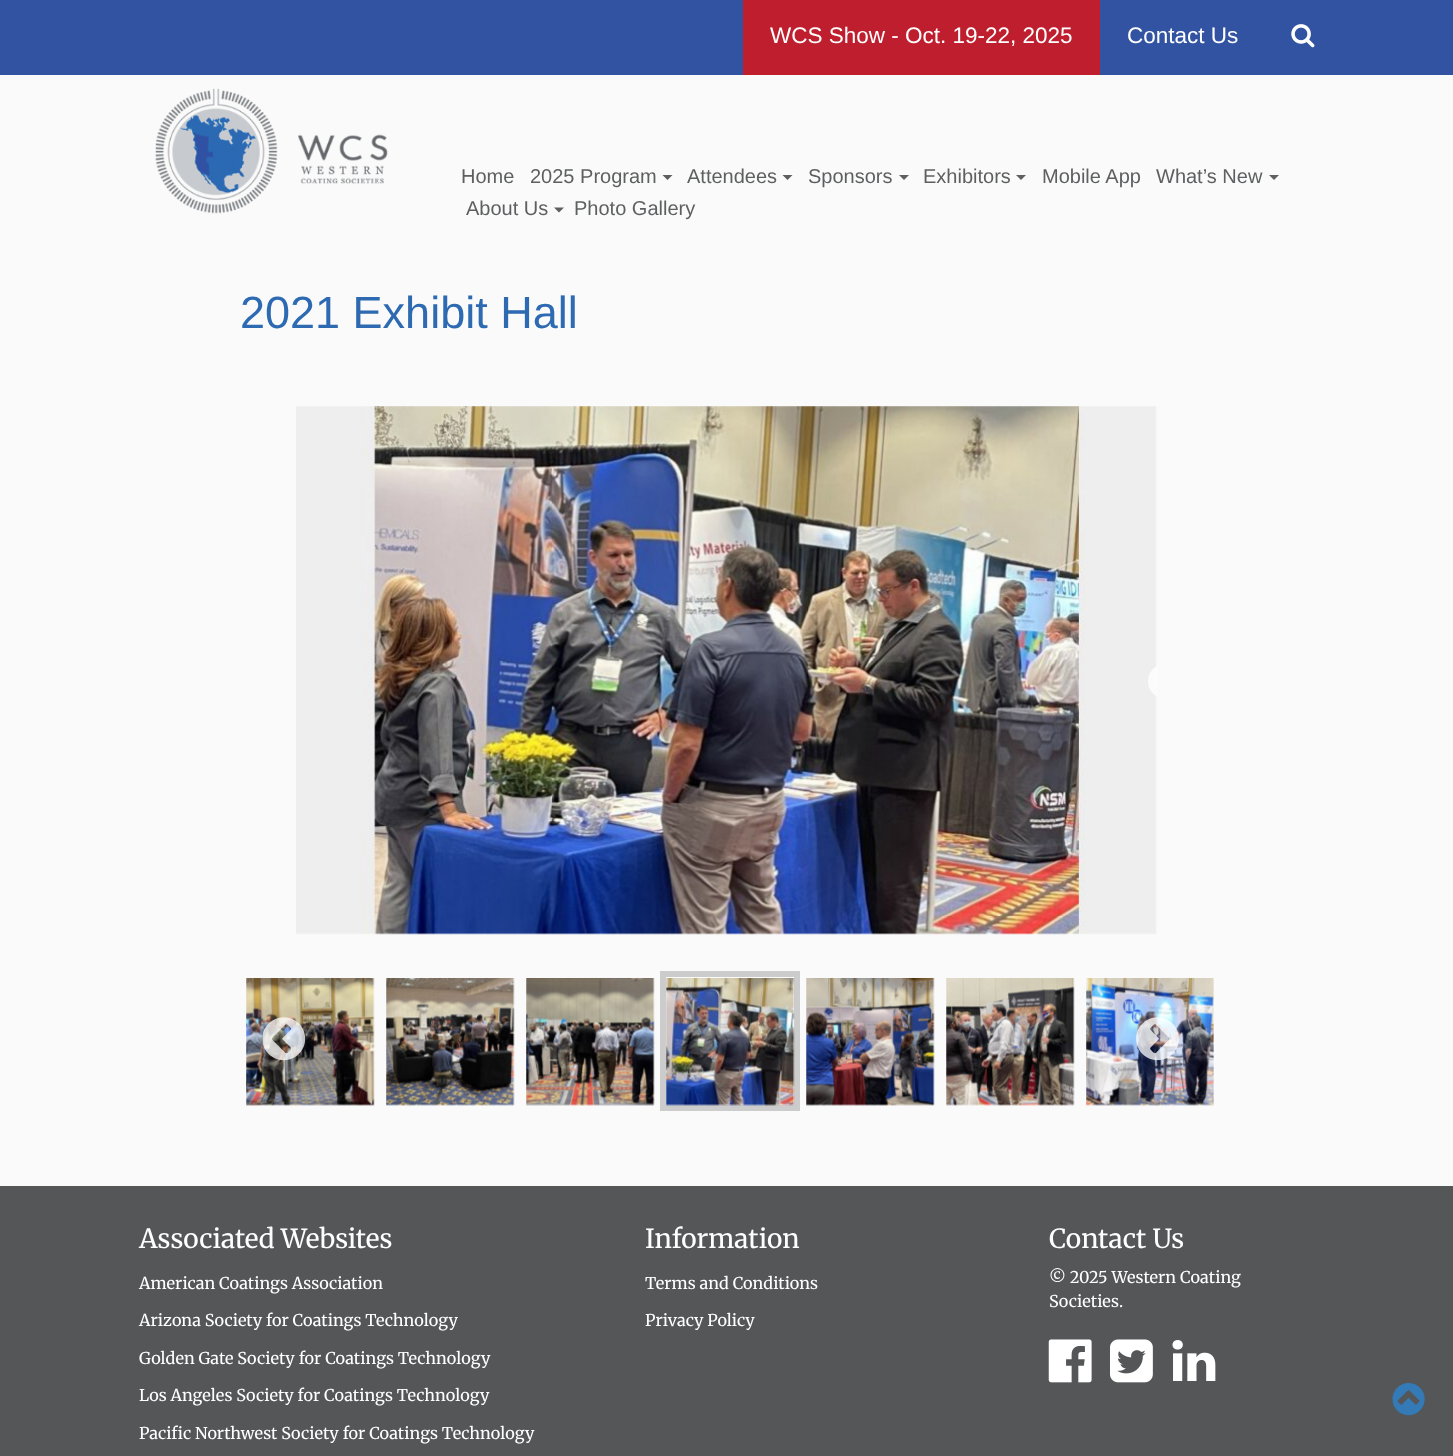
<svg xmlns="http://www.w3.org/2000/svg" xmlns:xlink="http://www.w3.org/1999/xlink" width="1453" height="1456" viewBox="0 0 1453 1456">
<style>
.cls-1{font:22.5px Liberation Sans;fill:#ffffff}
.cls-2{font:20px Liberation Sans;fill:#5e5f60}
.cls-3{font:45px Liberation Sans;fill:#2d6ab2}
.cls-4{font:300 26.25px Merriweather;fill:#ffffff}
.cls-5{font:300 16.25px Merriweather;fill:#ffffff}
</style>
<rect width="100%" height="100%" fill="#fafafa"/>
<rect fill="#3153a1" x="0" y="0" width="1453" height="75"/>
<rect fill="#be1e2d" x="743" y="0" width="357" height="75"/>
<image xlink:href="image0.png" x="1291" y="24" width="24" height="24"/>
<image xlink:href="image1.png" x="155" y="88" width="233" height="126"/>
<path fill="#5e5f60" d="M662.5 175H672.5L667.5 180Z"/>
<path fill="#5e5f60" d="M782.5 175H792.5L787.5 180Z"/>
<path fill="#5e5f60" d="M899 175H909L904 180Z"/>
<path fill="#5e5f60" d="M1016 175H1026L1021 180Z"/>
<path fill="#5e5f60" d="M1269 175H1279L1274 180Z"/>
<path fill="#5e5f60" d="M554 207.5H564L559 212.5Z"/>
<image xlink:href="image2.png" x="296" y="406" width="861" height="529"/>
<image xlink:href="image3.png" x="1148" y="666" width="9" height="30"/>
<image xlink:href="image4.png" x="246" y="978" width="129" height="128"/>
<image xlink:href="image5.png" x="386" y="978" width="129" height="128"/>
<image xlink:href="image6.png" x="526" y="978" width="129" height="128"/>
<rect fill="none" stroke="#cccccc" stroke-width="6" x="663" y="974" width="134" height="134"/>
<image xlink:href="image7.png" x="666" y="978" width="129" height="128"/>
<image xlink:href="image8.png" x="806" y="978" width="129" height="128"/>
<image xlink:href="image9.png" x="946" y="978" width="129" height="128"/>
<image xlink:href="image10.png" x="1086" y="978" width="128" height="128"/>
<image xlink:href="image11.png" x="262" y="1017" width="44" height="44"/>
<image xlink:href="image12.png" x="1136" y="1017" width="43" height="44"/>
<rect fill="#555658" x="0" y="1186" width="1453" height="270"/>
<image xlink:href="image13.png" x="1048" y="1339" width="44" height="44"/>
<image xlink:href="image14.png" x="1110" y="1339" width="43" height="44"/>
<image xlink:href="image15.png" x="1172" y="1340" width="44" height="41"/>
<image xlink:href="image16.png" x="1392" y="1383" width="33" height="33"/>
<text class="cls-1" x="770" y="43">WCS Show - Oct. 19-22, 2025</text>
<text class="cls-1" x="1127" y="43">Contact Us</text>
<text class="cls-2" x="461" y="183">Home</text>
<text class="cls-2" x="530" y="183">2025 Program</text>
<text class="cls-2" x="687" y="183">Attendees</text>
<text class="cls-2" x="808" y="183">Sponsors</text>
<text class="cls-2" x="923" y="183">Exhibitors</text>
<text class="cls-2" x="1042" y="183">Mobile App</text>
<text class="cls-2" x="1156" y="183">What’s New</text>
<text class="cls-2" x="466" y="215">About Us</text>
<text class="cls-2" x="574" y="215">Photo Gallery</text>
<text class="cls-3" x="240" y="328">2021 Exhibit Hall</text>
<text class="cls-4" x="139" y="1248">Associated Websites</text>
<text class="cls-5" x="139" y="1289">American Coatings Association</text>
<text class="cls-5" x="139" y="1326">Arizona Society for Coatings Technology</text>
<text class="cls-5" x="139" y="1364">Golden Gate Society for Coatings Technology</text>
<text class="cls-5" x="139" y="1401">Los Angeles Society for Coatings Technology</text>
<text class="cls-5" x="139" y="1439">Pacific Northwest Society for Coatings Technology</text>
<text class="cls-4" x="645" y="1248">Information</text>
<text class="cls-5" x="645" y="1289">Terms and Conditions</text>
<text class="cls-5" x="645" y="1326">Privacy Policy</text>
<text class="cls-4" x="1049" y="1248">Contact Us</text>
<text class="cls-5"><tspan x="1049" y="1283">© 2025 Western Coating</tspan><tspan x="1049" y="1307">Societies.</tspan></text>
</svg>
